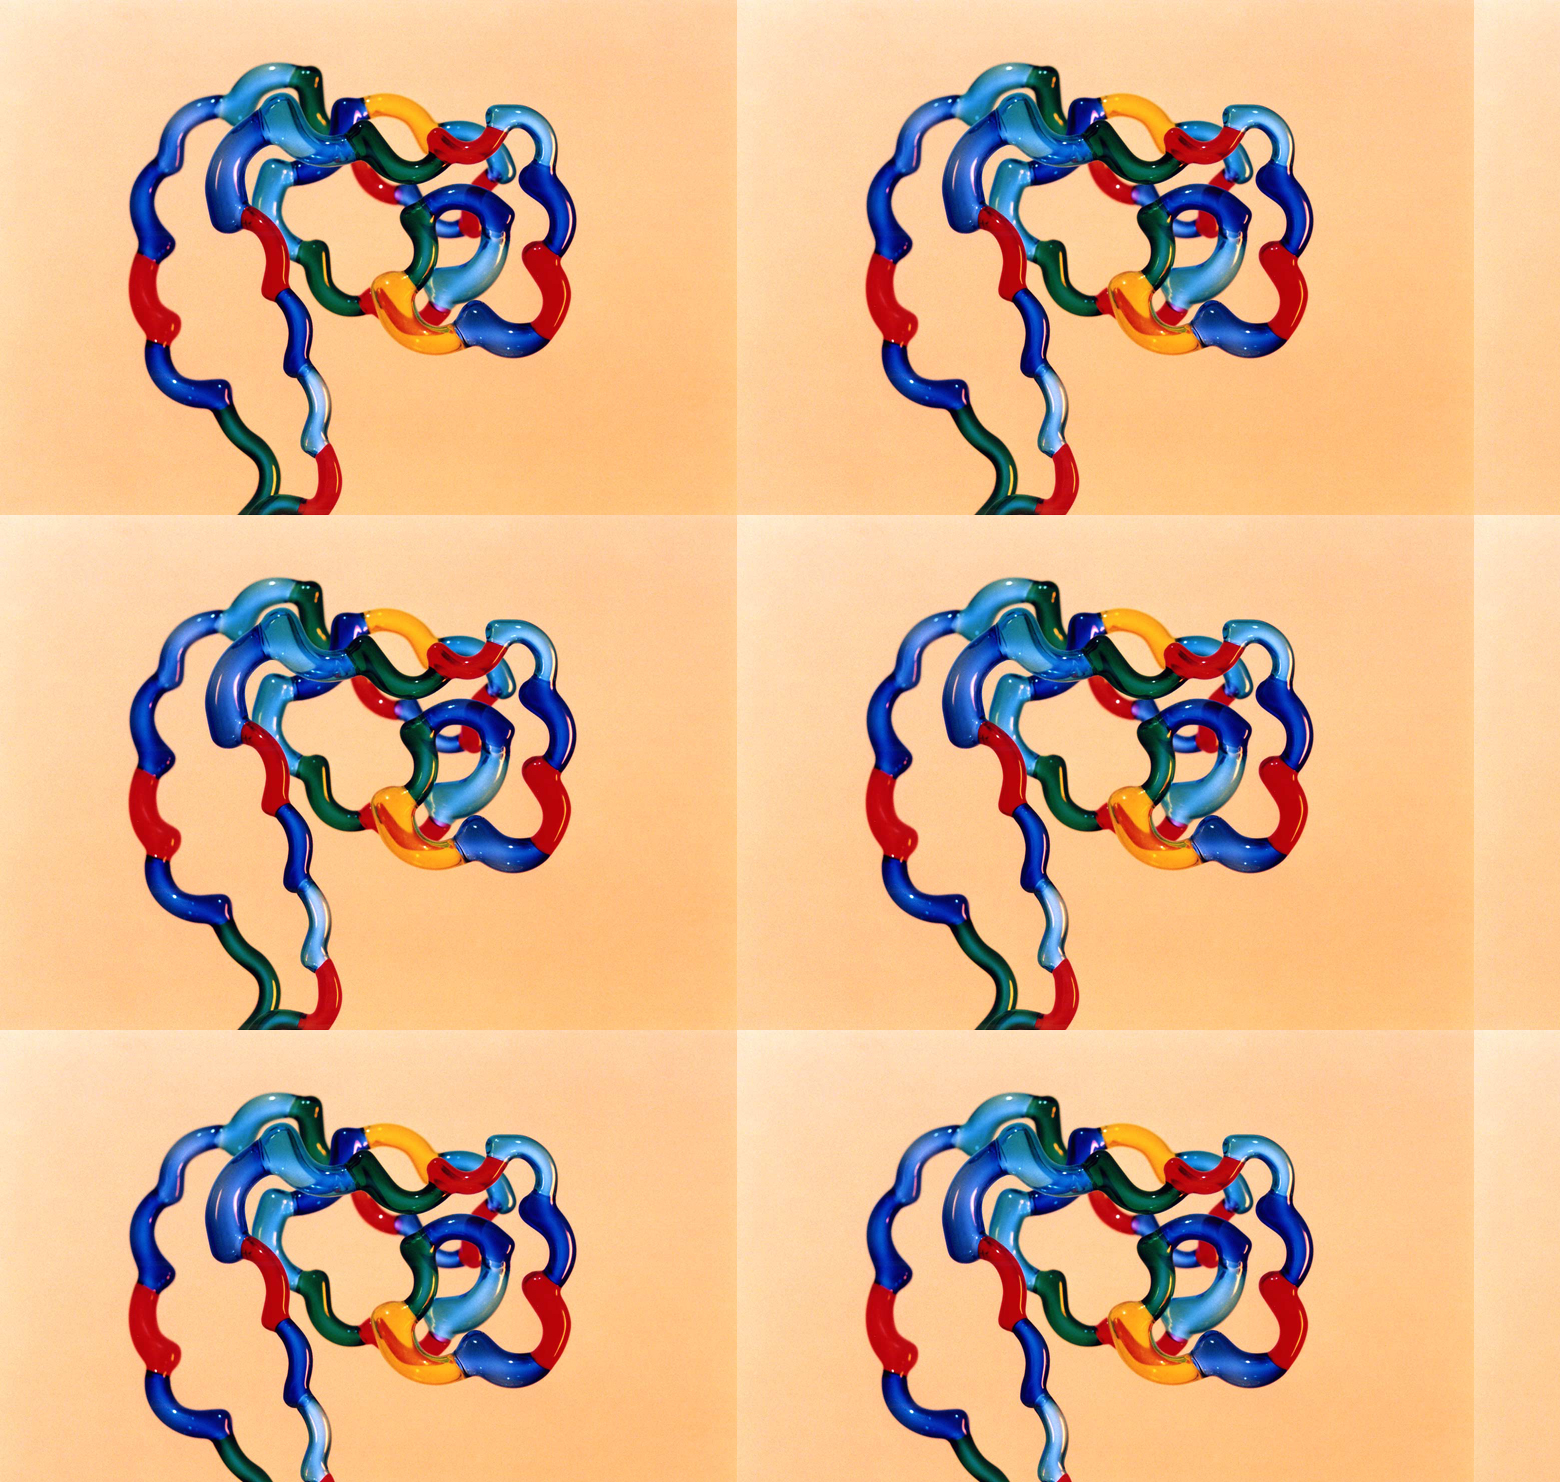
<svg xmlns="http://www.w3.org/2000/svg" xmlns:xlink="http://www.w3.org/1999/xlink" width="1560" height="1482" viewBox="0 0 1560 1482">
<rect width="100%" height="100%" fill="#ffffff"/>
<image xlink:href="image0.png" x="0" y="0" width="1560" height="1482"/>
</svg>
